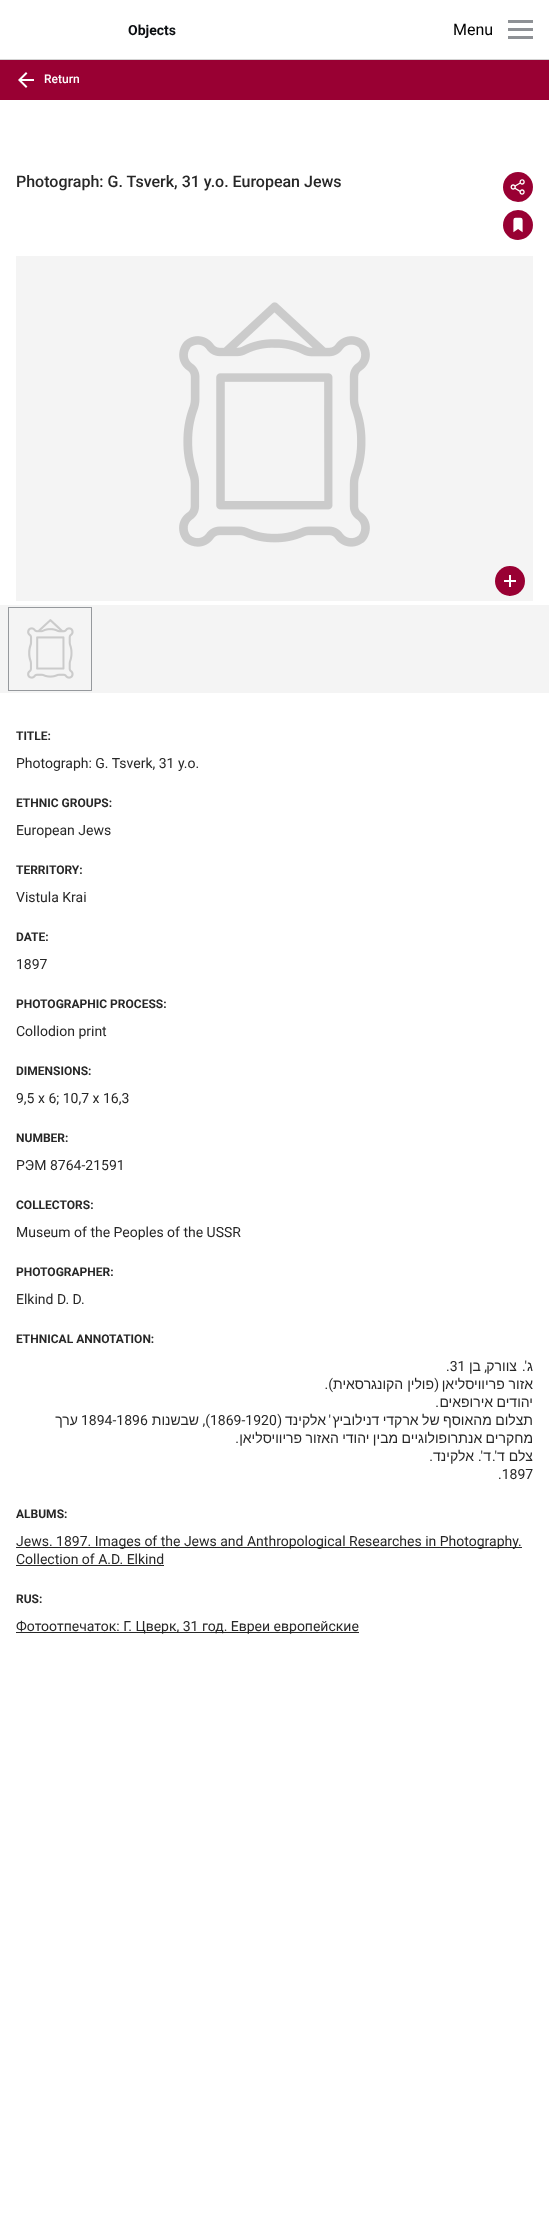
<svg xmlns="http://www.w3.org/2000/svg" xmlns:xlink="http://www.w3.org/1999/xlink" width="549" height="2214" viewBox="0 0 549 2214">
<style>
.cls-1{font:bold 14px Roboto;fill:#0a0d10}
.cls-2{font:16px Roboto;fill:#000000}
.cls-3{font:500 12px Roboto;fill:#ffffff}
.cls-4{font:500 16px Roboto;fill:#272727}
.cls-5{font:bold 12px Roboto;fill:#272727}
.cls-6{font:14px Roboto;fill:#272727}
.cls-7{font:14px Liberation Sans;direction:rtl;fill:#272727}
.cls-8{font:14px Roboto;direction:rtl;fill:#272727}
</style>
<rect width="100%" height="100%" fill="#ffffff"/>
<rect fill="#d3d3d3" x="0" y="59" width="549" height="1"/>
<rect fill="#8e9195" x="508" y="20" width="25" height="3"/>
<rect fill="#8e9195" x="508" y="28" width="25" height="3"/>
<rect fill="#8e9195" x="508" y="36" width="25" height="3"/>
<rect fill="#990033" x="0" y="60" width="549" height="40"/>
<image xlink:href="image0.png" x="18" y="72" width="16" height="16"/>
<circle fill="#990033" cx="518" cy="187" r="15"/>
<image xlink:href="image1.png" x="510" y="179" width="15" height="16"/>
<circle fill="#990033" cx="518" cy="225" r="15"/>
<image xlink:href="image2.png" x="513" y="217" width="10" height="16"/>
<rect fill="#f4f4f4" x="16" y="256" width="517" height="345"/>
<image xlink:href="image3.png" x="179" y="302" width="191" height="245"/>
<circle fill="#990033" cx="510" cy="581" r="15"/>
<rect fill="#ffffff" x="504" y="580" width="12" height="2"/>
<rect fill="#ffffff" x="509" y="575" width="2" height="12"/>
<rect fill="#f4f4f4" x="0" y="605" width="549" height="88"/>
<rect fill="none" stroke="#96999d" x="8.5" y="607.5" width="83" height="83"/>
<image xlink:href="image4.png" x="27" y="619" width="47" height="60"/>
<rect fill="#272727" x="16" y="1547" width="506" height="1"/>
<rect fill="#272727" x="16" y="1565" width="148" height="1"/>
<rect fill="#272727" x="16" y="1632" width="343" height="1"/>
<text class="cls-1" x="128" y="35">Objects</text>
<text class="cls-2" x="453" y="35">Menu</text>
<text class="cls-3" x="44" y="83">Return</text>
<text class="cls-4" x="16" y="187">Photograph: G. Tsverk, 31 y.o. European Jews</text>
<text class="cls-5" x="16" y="740">TITLE:</text>
<text class="cls-6" x="16" y="768">Photograph: G. Tsverk, 31 y.o.</text>
<text class="cls-5" x="16" y="807">ETHNIC GROUPS:</text>
<text class="cls-6" x="16" y="835">European Jews</text>
<text class="cls-5" x="16" y="874">TERRITORY:</text>
<text class="cls-6" x="16" y="902">Vistula Krai</text>
<text class="cls-5" x="16" y="941">DATE:</text>
<text class="cls-6" x="16" y="969">1897</text>
<text class="cls-5" x="16" y="1008">PHOTOGRAPHIC PROCESS:</text>
<text class="cls-6" x="16" y="1036">Collodion print</text>
<text class="cls-5" x="16" y="1075">DIMENSIONS:</text>
<text class="cls-6" x="16" y="1103">9,5 x 6; 10,7 x 16,3</text>
<text class="cls-5" x="16" y="1142">NUMBER:</text>
<text class="cls-6" x="16" y="1170">РЭМ 8764-21591</text>
<text class="cls-5" x="16" y="1209">COLLECTORS:</text>
<text class="cls-6" x="16" y="1237">Museum of the Peoples of the USSR</text>
<text class="cls-5" x="16" y="1276">PHOTOGRAPHER:</text>
<text class="cls-6" x="16" y="1304">Elkind D. D.</text>
<text class="cls-5" x="16" y="1343">ETHNICAL ANNOTATION:</text>
<text class="cls-6" x="446" y="1371">.31</text>
<text class="cls-7" x="481" y="1371">בן</text>
<text class="cls-8" x="487" y="1371">,</text>
<text class="cls-7" x="517" y="1371">צוורק</text>
<text class="cls-8" x="527" y="1371">'.</text>
<text class="cls-7" x="533" y="1371">ג</text>
<text class="cls-8" x="333" y="1389">).</text>
<text class="cls-7" x="434" y="1389">פולין הקונגרסאית</text>
<text class="cls-8" x="439" y="1389">(</text>
<text class="cls-7" x="533" y="1389">אזור פריוויסליאן</text>
<text class="cls-8" x="439" y="1407">.</text>
<text class="cls-7" x="533" y="1407" word-spacing="-0.5">יהודים אירופאים</text>
<text class="cls-7" x="78" y="1425">ערך</text>
<text class="cls-6" x="81" y="1425">1894-1896</text>
<text class="cls-7" x="199" y="1425">שבשנות</text>
<text class="cls-8" x="210" y="1425">),</text>
<text class="cls-6" x="210" y="1425">1869-1920</text>
<text class="cls-8" x="282" y="1425">(</text>
<text class="cls-7" x="326" y="1425">אלקינד</text>
<text class="cls-8" x="331" y="1425">'</text>
<text class="cls-7" x="533" y="1425" word-spacing="-0.5">תצלום מהאוסף של ארקדי דנילוביץ</text>
<text class="cls-8" x="239" y="1443">.</text>
<text class="cls-7" x="533" y="1443" word-spacing="-0.5">מחקרים אנתרופולוגיים מבין יהודי האזור פריוויסליאן</text>
<text class="cls-8" x="433" y="1461">.</text>
<text class="cls-7" x="474" y="1461">אלקינד</text>
<text class="cls-8" x="483" y="1461">'.</text>
<text class="cls-7" x="491" y="1461">ד</text>
<text class="cls-8" x="497" y="1461">'.</text>
<text class="cls-7" x="533" y="1461">צלם ד</text>
<text class="cls-6" x="498" y="1479">.1897</text>
<text class="cls-5" x="16" y="1518">ALBUMS:</text>
<text class="cls-6"><tspan x="16" y="1546">Jews. 1897. Images of the Jews and Anthropological Researches in Photography.</tspan><tspan x="16" y="1564">Сollection of A.D. Elkind</tspan></text>
<text class="cls-5" x="16" y="1603">RUS:</text>
<text class="cls-6" x="16" y="1631">Фотоотпечаток: Г. Цверк, 31 год. Евреи европейские</text>
</svg>
